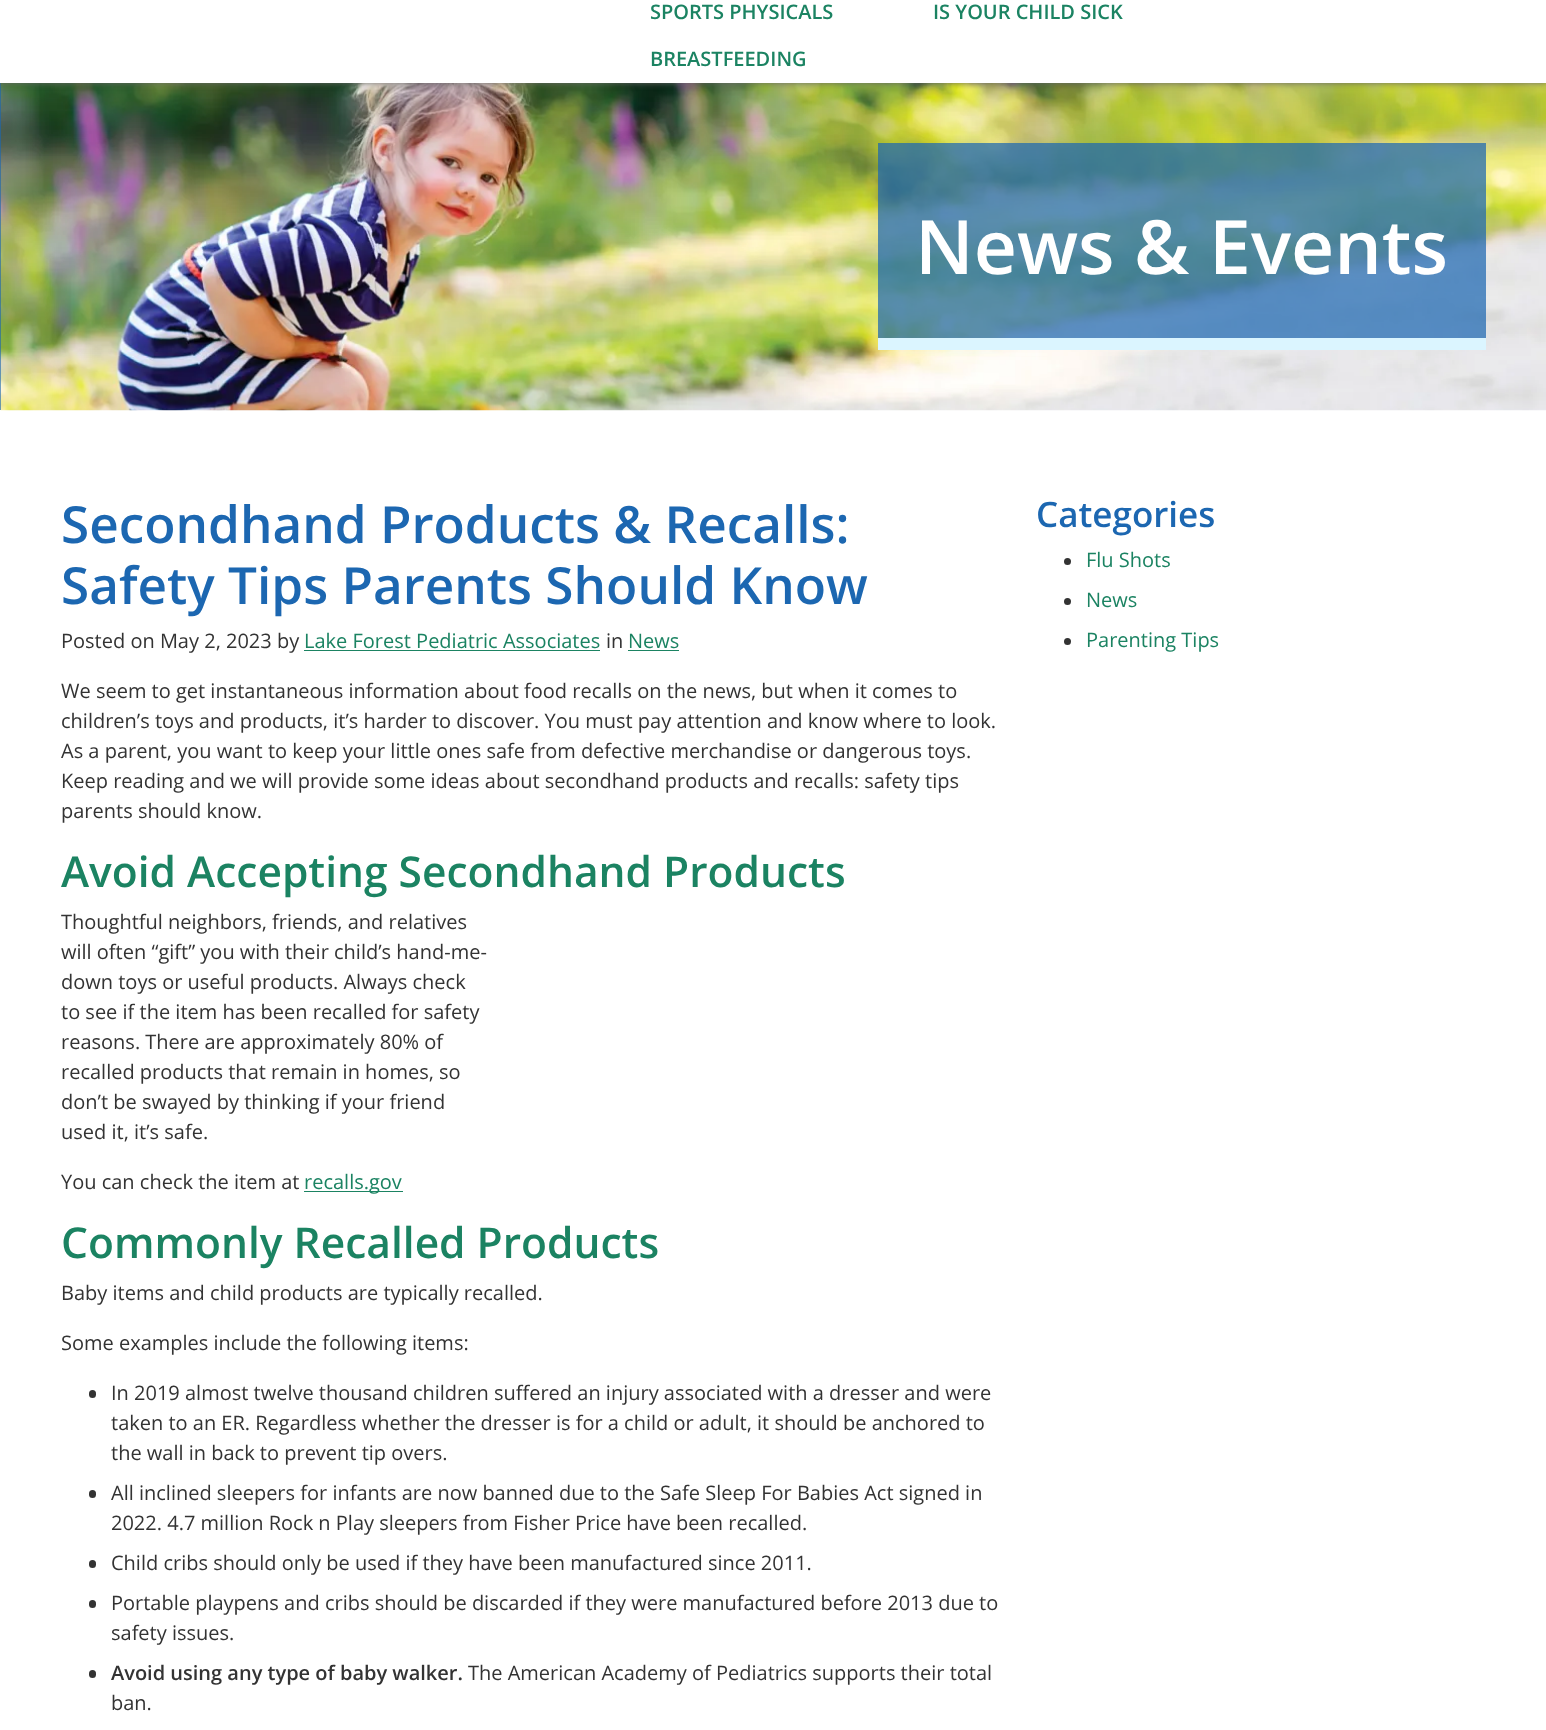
<svg xmlns="http://www.w3.org/2000/svg" xmlns:xlink="http://www.w3.org/1999/xlink" width="1546" height="1730" viewBox="0 0 1546 1730">
<style>
.cls-1{font:600 20px Open Sans;fill:#1b8362}
.cls-2{font:600 75px Open Sans;fill:#ffffff}
.cls-3{font:600 51.25px Open Sans;fill:#1c67b1}
.cls-4{font:20px Open Sans;fill:#333333}
.cls-5{font:20px Open Sans;fill:#1b8362}
.cls-6{font:600 42.5px Open Sans;fill:#1b8362}
.cls-7{font:600 20px Open Sans;fill:#333333}
.cls-8{font:600 35px Open Sans;fill:#1c67b1}
</style>
<rect width="100%" height="100%" fill="#ffffff"/>
<rect fill="#1c67b1" x="0" y="83" width="1" height="327"/>
<image xlink:href="image0.png" x="0" y="83" width="1546" height="328"/>
<rect fill="#666666" filter="blur(3px)" x="0" y="-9" width="1546" height="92"/>
<rect fill="#ffffff" x="0" y="0" width="1546" height="83"/>
<rect fill="#1c67b1" fill-opacity="0.72" x="878" y="143" width="608" height="195"/>
<rect fill="#dbf5ff" x="878" y="338" width="608" height="12"/>
<rect fill="#1b8362" x="304" y="650" width="296" height="1"/>
<rect fill="#1b8362" x="628" y="650" width="51" height="1"/>
<rect fill="#1b8362" x="304" y="1191" width="99" height="1"/>
<rect fill="#333333" x="89" y="1390" width="7" height="8" rx="3.5"/>
<rect fill="#333333" x="89" y="1490" width="7" height="8" rx="3.5"/>
<rect fill="#333333" x="89" y="1560" width="7" height="8" rx="3.5"/>
<rect fill="#333333" x="89" y="1600" width="7" height="8" rx="3.5"/>
<rect fill="#333333" x="89" y="1670" width="7" height="8" rx="3.5"/>
<circle fill="#333333" cx="1067.5" cy="561.5" r="3.5"/>
<circle fill="#333333" cx="1067.5" cy="601.5" r="3.5"/>
<circle fill="#333333" cx="1067.5" cy="641.5" r="3.5"/>
<text class="cls-1" x="650" y="19">SPORTS PHYSICALS</text>
<text class="cls-1" x="650" y="66">BREASTFEEDING</text>
<text class="cls-1" x="933" y="19">IS YOUR CHILD SICK</text>
<text class="cls-2" x="915" y="274">News &amp; Events</text>
<text class="cls-3"><tspan x="61" y="543">Secondhand Products &amp; Recalls:</tspan><tspan x="61" y="604">Safety Tips Parents Should Know</tspan></text>
<text class="cls-4" x="61" y="648">Posted on May 2, 2023 by</text>
<text class="cls-5" x="304" y="648">Lake Forest Pediatric Associates</text>
<text class="cls-4" x="606" y="648">in</text>
<text class="cls-5" x="628" y="648">News</text>
<text class="cls-4"><tspan x="61" y="698">We seem to get instantaneous information about food recalls on the news, but when it comes to</tspan><tspan x="61" y="728">children’s toys and products, it’s harder to discover. You must pay attention and know where to look.</tspan><tspan x="61" y="758">As a parent, you want to keep your little ones safe from defective merchandise or dangerous toys.</tspan><tspan x="61" y="788">Keep reading and we will provide some ideas about secondhand products and recalls: safety tips</tspan><tspan x="61" y="818">parents should know.</tspan></text>
<text class="cls-6" x="61" y="887">Avoid Accepting Secondhand Products</text>
<text class="cls-4"><tspan x="61" y="929">Thoughtful neighbors, friends, and relatives</tspan><tspan x="61" y="959">will often “gift” you with their child’s hand-me-</tspan><tspan x="61" y="989">down toys or useful products. Always check</tspan><tspan x="61" y="1019">to see if the item has been recalled for safety</tspan><tspan x="61" y="1049">reasons. There are approximately 80% of</tspan><tspan x="61" y="1079">recalled products that remain in homes, so</tspan><tspan x="61" y="1109">don’t be swayed by thinking if your friend</tspan><tspan x="61" y="1139">used it, it’s safe.</tspan></text>
<text class="cls-4" x="61" y="1189">You can check the item at</text>
<text class="cls-5" x="304" y="1189">recalls.gov</text>
<text class="cls-6" x="61" y="1258">Commonly Recalled Products</text>
<text class="cls-4" x="61" y="1300">Baby items and child products are typically recalled.</text>
<text class="cls-4" x="61" y="1350">Some examples include the following items:</text>
<text class="cls-4"><tspan x="111" y="1400">In 2019 almost twelve thousand children suffered an injury associated with a dresser and were</tspan><tspan x="111" y="1430">taken to an ER. Regardless whether the dresser is for a child or adult, it should be anchored to</tspan><tspan x="111" y="1460">the wall in back to prevent tip overs.</tspan></text>
<text class="cls-4"><tspan x="111" y="1500">All inclined sleepers for infants are now banned due to the Safe Sleep For Babies Act signed in</tspan><tspan x="111" y="1530">2022. 4.7 million Rock n Play sleepers from Fisher Price have been recalled.</tspan></text>
<text class="cls-4" x="111" y="1570">Child cribs should only be used if they have been manufactured since 2011.</text>
<text class="cls-4"><tspan x="111" y="1610">Portable playpens and cribs should be discarded if they were manufactured before 2013 due to</tspan><tspan x="111" y="1640">safety issues.</tspan></text>
<text class="cls-7" x="111" y="1680">Avoid using any type of baby walker.</text>
<text class="cls-4" x="468" y="1680">The American Academy of Pediatrics supports their total</text>
<text class="cls-4" x="111" y="1710">ban.</text>
<text class="cls-8" x="1036" y="527">Categories</text>
<text class="cls-5" x="1086" y="567">Flu Shots</text>
<text class="cls-5" x="1086" y="607">News</text>
<text class="cls-5" x="1086" y="647">Parenting Tips</text>
</svg>
